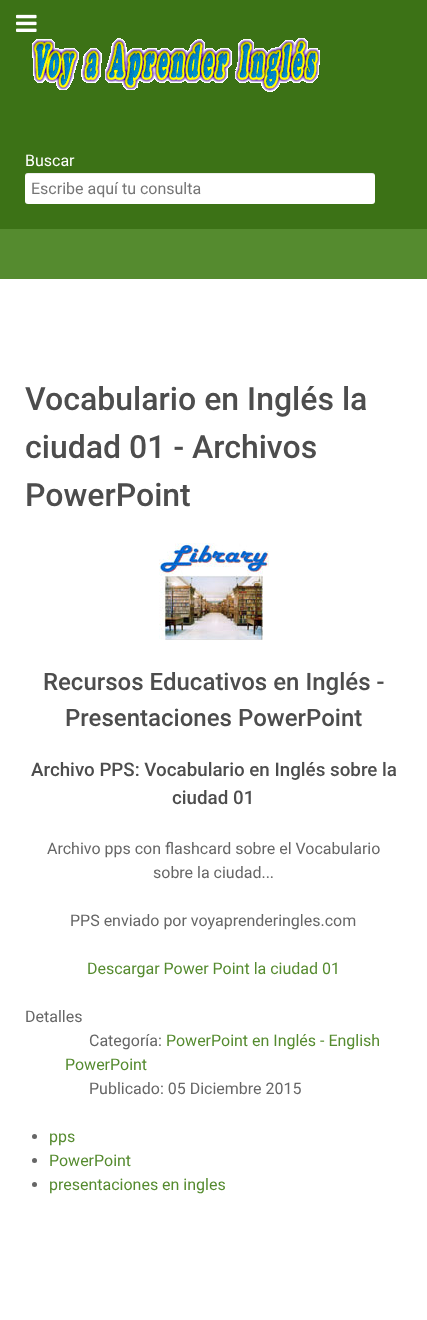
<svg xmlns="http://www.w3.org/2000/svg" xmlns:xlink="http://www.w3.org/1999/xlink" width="427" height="1320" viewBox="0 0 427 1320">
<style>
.cls-1{font:16px Roboto;fill:#ffffff}
.cls-2{font:16px Roboto;fill:#757575}
.cls-3{font:500 32px Roboto;fill:#4d4d4d}
.cls-4{font:500 24px Roboto;fill:#4d4d4d}
.cls-5{font:500 18.75px Roboto;fill:#4d4d4d}
.cls-6{font:16px Roboto;fill:#666666}
.cls-7{font:16px Roboto;fill:#558b2f}
</style>
<rect width="100%" height="100%" fill="#ffffff"/>
<rect fill="#3c7216" x="0" y="0" width="427" height="229"/>
<image xlink:href="image0.png" x="16" y="14" width="21" height="18"/>
<image xlink:href="image1.png" x="32" y="38" width="288" height="54"/>
<rect fill="#ffffff" x="25" y="173" width="350" height="31" rx="3"/>
<path fill="#000000" fill-opacity="0.07" d="M28 174H372C374 174 375 175 375 177C375 175 374 173 372 173H28L26 174L25 177C25 175 26 174 28 174Z"/>
<rect fill="#558b2f" x="0" y="229" width="427" height="50"/>
<image xlink:href="image2.png" x="159" y="543" width="110" height="97"/>
<circle fill="#666666" cx="34.5" cy="1136.5" r="2.5"/>
<circle fill="#666666" cx="34.5" cy="1160.5" r="2.5"/>
<circle fill="#666666" cx="34.5" cy="1184.5" r="2.5"/>
<text class="cls-1" x="25" y="166">Buscar</text>
<text class="cls-2" x="31" y="194">Escribe aquí tu consulta</text>
<text class="cls-3"><tspan x="25" y="410">Vocabulario en Inglés la</tspan><tspan x="25" y="458">ciudad 01 - Archivos</tspan><tspan x="25" y="506">PowerPoint</tspan></text>
<text class="cls-4" x="43" y="690">Recursos Educativos en Inglés -</text>
<text class="cls-4" x="65" y="726">Presentaciones PowerPoint</text>
<text class="cls-5" x="31" y="776">Archivo PPS: Vocabulario en Inglés sobre la</text>
<text class="cls-5" x="172" y="804">ciudad 01</text>
<text class="cls-6" x="47" y="854">Archivo pps con flashcard sobre el Vocabulario</text>
<text class="cls-6" x="153" y="878">sobre la ciudad...</text>
<text class="cls-6" x="70" y="926">PPS enviado por voyaprenderingles.com</text>
<text class="cls-7" x="87" y="974">Descargar Power Point la ciudad 01</text>
<text class="cls-6" x="25" y="1022">Detalles</text>
<text class="cls-6" x="89" y="1046">Categoría:</text>
<text class="cls-7" x="166" y="1046">PowerPoint en Inglés - English</text>
<text class="cls-7" x="65" y="1070">PowerPoint</text>
<text class="cls-6" x="89" y="1094">Publicado: 05 Diciembre 2015</text>
<text class="cls-7"><tspan x="49" y="1142">pps</tspan><tspan x="49" y="1166">PowerPoint</tspan><tspan x="49" y="1190">presentaciones en ingles</tspan></text>
</svg>
